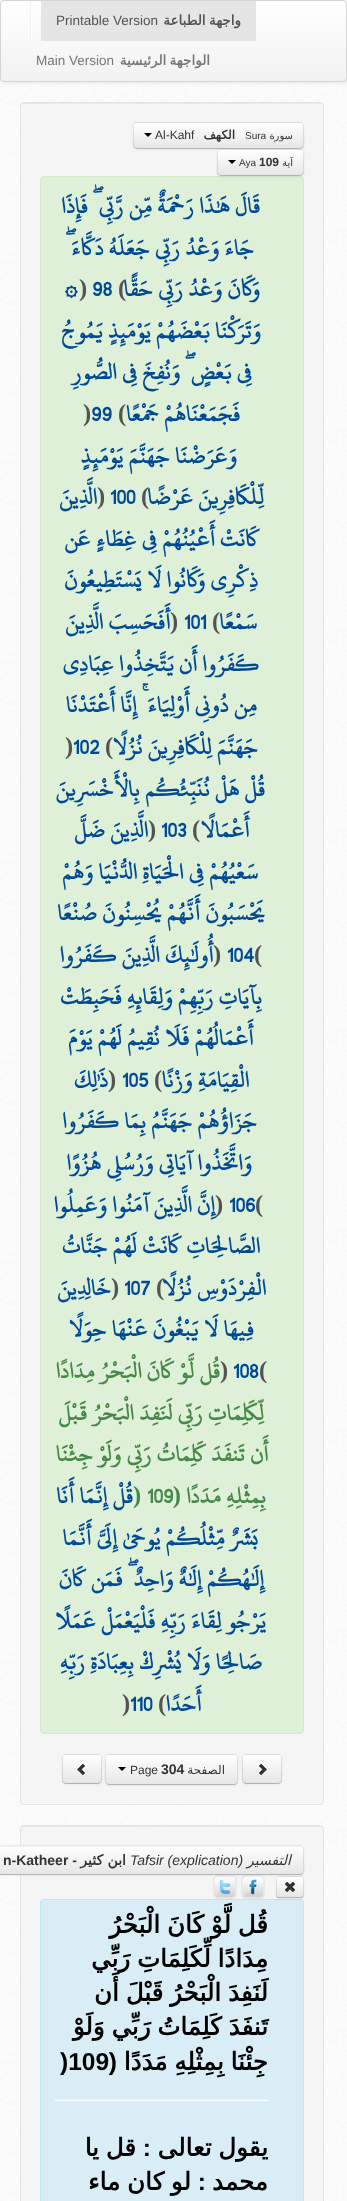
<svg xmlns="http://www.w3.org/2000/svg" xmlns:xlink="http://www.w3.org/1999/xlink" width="347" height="2201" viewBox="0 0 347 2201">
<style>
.cls-1{font:bold 13.5px DejaVu Sans;direction:rtl;fill:#535353}
.cls-2{font:13.5px Liberation Sans;fill:#535353}
.cls-3{font:bold 13.5px DejaVu Sans;direction:rtl;fill:#777777}
.cls-4{font:13.5px Liberation Sans;fill:#777777}
.cls-5{font:10px DejaVu Sans;direction:rtl;fill:#333333}
.cls-6{font:10px Liberation Sans;fill:#333333}
.cls-7{font:bold 12px DejaVu Sans;direction:rtl;fill:#333333}
.cls-8{font:12px Liberation Sans;fill:#333333}
.cls-9{font:bold 12px Liberation Sans;fill:#333333}
.cls-10{font:bold 24.5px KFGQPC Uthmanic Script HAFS;direction:rtl;fill:#004a95}
.cls-11{font:bold 24.5px Liberation Serif;fill:#535353}
.cls-12{font:bold 24.5px KFGQPC Uthmanic Script HAFS;fill:#004a95}
.cls-13{font:bold 24.5px KFGQPC Uthmanic Script HAFS;direction:rtl;fill:#468847}
.cls-14{font:bold 24.5px Liberation Serif;direction:rtl;fill:#468847}
.cls-15{font:bold 24.5px KFGQPC Uthmanic Script HAFS;fill:#468847}
.cls-16{font:bold 24.5px Liberation Serif;fill:#468847}
.cls-17{font:12px DejaVu Sans;direction:rtl;fill:#333333}
.cls-18{font:bold 14px Liberation Sans;fill:#333333}
.cls-19{font:italic 14px DejaVu Sans;direction:rtl;fill:#333333}
.cls-20{font:italic 14px Liberation Sans;fill:#333333}
.cls-21{font:bold 14px DejaVu Sans;direction:rtl;fill:#333333}
.cls-22{font:bold 14px Liberation Sans;direction:rtl;fill:#333333}
.cls-23{font:bold 24.5px DejaVu Sans;direction:rtl;fill:#000000}
.cls-24{font:bold 24.5px Liberation Sans;direction:rtl;fill:#000000}
.cls-25{font:bold 24.5px Liberation Sans;fill:#000000}
</style>
<defs>
<clipPath id="clip1"><rect x="0" y="0" width="347" height="82" rx="4"/></clipPath>
<linearGradient id="g1" gradientUnits="userSpaceOnUse" x1="174" y1="1" x2="174" y2="81"><stop offset="0" stop-color="#ffffff"/><stop offset="1" stop-color="#f2f2f2"/></linearGradient>
<clipPath id="clip2"><rect x="133" y="122" width="171" height="27" rx="4"/></clipPath>
<linearGradient id="g2" gradientUnits="userSpaceOnUse" x1="219" y1="123" x2="219" y2="148"><stop offset="0" stop-color="#ffffff"/><stop offset="1" stop-color="#e6e6e6"/></linearGradient>
<clipPath id="clip3"><rect x="217" y="149" width="87" height="27" rx="4"/></clipPath>
<linearGradient id="g3" gradientUnits="userSpaceOnUse" x1="261" y1="150" x2="261" y2="175"><stop offset="0" stop-color="#ffffff"/><stop offset="1" stop-color="#e6e6e6"/></linearGradient>
<clipPath id="clip4"><rect x="242" y="1754" width="40" height="30" rx="4"/></clipPath>
<linearGradient id="g4" gradientUnits="userSpaceOnUse" x1="262" y1="1755" x2="262" y2="1783"><stop offset="0" stop-color="#ffffff"/><stop offset="1" stop-color="#e6e6e6"/></linearGradient>
<clipPath id="clip5"><rect x="62" y="1754" width="40" height="30" rx="4"/></clipPath>
<linearGradient id="g5" gradientUnits="userSpaceOnUse" x1="82" y1="1755" x2="82" y2="1783"><stop offset="0" stop-color="#ffffff"/><stop offset="1" stop-color="#e6e6e6"/></linearGradient>
<clipPath id="clip6"><rect x="105" y="1754" width="133" height="31" rx="4"/></clipPath>
<linearGradient id="g6" gradientUnits="userSpaceOnUse" x1="172" y1="1755" x2="172" y2="1784"><stop offset="0" stop-color="#ffffff"/><stop offset="1" stop-color="#e6e6e6"/></linearGradient>
<clipPath id="clip7"><rect x="276" y="1876" width="28" height="22" rx="3"/></clipPath>
<linearGradient id="g7" gradientUnits="userSpaceOnUse" x1="290" y1="1877" x2="290" y2="1897"><stop offset="0" stop-color="#ffffff"/><stop offset="1" stop-color="#e6e6e6"/></linearGradient>
<clipPath id="clip8"><rect x="-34" y="1845" width="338" height="30" rx="4"/></clipPath>
<linearGradient id="g8" gradientUnits="userSpaceOnUse" x1="135" y1="1846" x2="135" y2="1874"><stop offset="0" stop-color="#ffffff"/><stop offset="1" stop-color="#e6e6e6"/></linearGradient>
</defs>
<rect width="100%" height="100%" fill="#ffffff"/>
<image xlink:href="image0.png" x="0" y="0" width="347" height="2201"/>
<rect fill="#000000" fill-opacity="0.07" filter="blur(2px)" x="0" y="1" width="347" height="82" rx="4"/>
<g clip-path="url(#clip1)">
<rect fill="url(#g1)" x="0" y="1" width="347" height="80"/>
</g>
<rect fill="none" stroke="#d4d4d4" x="0.5" y="0.5" width="346" height="81" rx="3.5"/>
<rect fill="#e5e5e5" x="41" y="1" width="215" height="40"/>
<rect fill="#ffffff" x="31" y="16" width="1" height="25"/>
<rect fill="#f2f2f2" x="30" y="1" width="1" height="40"/>
<rect fill="#f5f5f5" x="20" y="102" width="304" height="1703" rx="4"/>
<path fill="#e9e9e9" d="M24 104H320C322 104 323 105 323 107L322 104L321 103H24C22 103 21 105 21 107C21 105 22 104 24 104Z"/>
<rect fill="none" stroke="#e3e3e3" x="20.5" y="102.5" width="303" height="1702" rx="3.5"/>
<rect fill="#000000" fill-opacity="0.05" filter="blur(1px)" x="133" y="123" width="171" height="27" rx="4"/>
<rect fill="#f5f5f5" x="133" y="122" width="171" height="27" rx="4"/>
<g clip-path="url(#clip2)">
<rect fill="url(#g2)" x="133" y="123" width="171" height="25"/>
</g>
<path fill="none" stroke="#b3b3b3" d="M302.5 147.5L300.5 148.5H164H137L134.5 147.5"/>
<path fill="none" stroke="#000000" stroke-opacity="0.1" d="M134.5 147.5C132.5 145.5 133.5 138 133.5 135.5V129C133.5 126.5 133 122.5 137 122.5H300C304 122.5 303.5 126.5 303.5 129V135.5C303.5 138 304.5 145.5 302.5 147.5"/>
<path fill="#000000" d="M144 133H152L148 137Z"/>
<rect fill="#dff0d8" stroke="#d6e9c6" x="40.5" y="176.5" width="263" height="1557" rx="3.5"/>
<rect fill="#000000" fill-opacity="0.05" filter="blur(1px)" x="217" y="150" width="87" height="27" rx="4"/>
<rect fill="#f5f5f5" x="217" y="149" width="87" height="27" rx="4"/>
<g clip-path="url(#clip3)">
<rect fill="url(#g3)" x="217" y="150" width="87" height="25"/>
</g>
<path fill="none" stroke="#b3b3b3" d="M302.5 174.5L300.5 175.5H220.5L218.5 174.5"/>
<path fill="none" stroke="#000000" stroke-opacity="0.1" d="M218.5 174.5C216.5 172.5 217.5 168 217.5 165.5C217.5 147 214.5 149.5 234 149.5H287C306.5 149.5 303.5 147 303.5 165.5C303.5 168 304.5 172.5 302.5 174.5"/>
<path fill="#000000" d="M228 160H236L232 164Z"/>
<rect fill="#000000" fill-opacity="0.05" filter="blur(1px)" x="242" y="1755" width="40" height="30" rx="4"/>
<rect fill="#f5f5f5" x="242" y="1754" width="40" height="30" rx="4"/>
<g clip-path="url(#clip4)">
<rect fill="url(#g4)" x="242" y="1755" width="40" height="28"/>
</g>
<path fill="none" stroke="#b3b3b3" d="M280.5 1782.5C280 1783 279 1783.5 278 1783.5H246C245 1783.5 244 1783 243.5 1782.5"/>
<path fill="none" stroke="#000000" stroke-opacity="0.1" d="M243.5 1782.5C243 1782 242.5 1781 242.5 1780V1758C242.5 1757 243 1756 243.5 1755.5C244 1755 245 1754.5 246 1754.5H278C279 1754.5 280 1755 280.5 1755.5C281 1756 281.5 1757 281.5 1758V1780C281.5 1781 281 1782 280.5 1782.5"/>
<image xlink:href="image1.png" x="259" y="1764" width="8" height="12"/>
<rect fill="#000000" fill-opacity="0.05" filter="blur(1px)" x="62" y="1755" width="40" height="30" rx="4"/>
<rect fill="#f5f5f5" x="62" y="1754" width="40" height="30" rx="4"/>
<g clip-path="url(#clip5)">
<rect fill="url(#g5)" x="62" y="1755" width="40" height="28"/>
</g>
<path fill="none" stroke="#b3b3b3" d="M100.5 1782.5C100 1783 99 1783.5 98 1783.5H66C65 1783.5 64 1783 63.5 1782.5"/>
<path fill="none" stroke="#000000" stroke-opacity="0.1" d="M63.5 1782.5C63 1782 62.5 1781 62.5 1780V1758C62.5 1757 63 1756 63.5 1755.5C64 1755 65 1754.5 66 1754.5H98C99 1754.5 100 1755 100.5 1755.5C101 1756 101.5 1757 101.5 1758V1780C101.5 1781 101 1782 100.5 1782.5"/>
<rect fill="#000000" fill-opacity="0.05" filter="blur(1px)" x="105" y="1755" width="133" height="31" rx="4"/>
<rect fill="#f5f5f5" x="105" y="1754" width="133" height="31" rx="4"/>
<g clip-path="url(#clip6)">
<rect fill="url(#g6)" x="105" y="1755" width="133" height="29"/>
</g>
<path fill="none" stroke="#b3b3b3" d="M236.5 1783.5C236 1784 235 1784.5 234 1784.5H109C108 1784.5 107 1784 106.5 1783.5"/>
<path fill="none" stroke="#000000" stroke-opacity="0.1" d="M106.5 1783.5C104.5 1781 105.5 1772.5 105.5 1769.5V1762C105.5 1759 105 1754.5 109 1754.5H234C238 1754.5 237.5 1759 237.5 1762V1769.5C237.5 1772.5 238.5 1781 236.5 1783.5"/>
<path fill="#000000" d="M118 1767H126L122 1771Z"/>
<image xlink:href="image2.png" x="77" y="1764" width="8" height="12"/>
<rect fill="#f5f5f5" x="20" y="1825" width="304" height="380" rx="4"/>
<path fill="#e9e9e9" d="M24 1827H320C322 1827 323 1828 323 1830L322 1827L321 1826H24C22 1826 21 1828 21 1830C21 1828 22 1827 24 1827Z"/>
<rect fill="none" stroke="#e3e3e3" x="20.5" y="1825.5" width="303" height="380" rx="3.5"/>
<rect fill="#d9edf7" stroke="#bce8f1" x="40.5" y="1899.5" width="263" height="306" rx="3.5"/>
<rect fill="#000000" fill-opacity="0.05" filter="blur(1px)" x="276" y="1877" width="28" height="22" rx="3"/>
<rect fill="#f5f5f5" x="276" y="1876" width="28" height="22" rx="3"/>
<g clip-path="url(#clip7)">
<rect fill="url(#g7)" x="276" y="1877" width="28" height="20"/>
</g>
<path fill="none" stroke="#b3b3b3" d="M303 1897C302.5 1897 301.5 1897.5 301 1897.5H279C278.5 1897.5 277.5 1897 277 1897"/>
<path fill="none" stroke="#000000" stroke-opacity="0.1" d="M277 1897C276 1895.5 276.5 1893.5 276.5 1892.5V1887C276.5 1873.5 275.5 1876.5 290 1876.5C304.5 1876.5 303.5 1873.5 303.5 1887V1892.5C303.5 1893.5 304 1895.5 303 1897"/>
<image xlink:href="image4.png" x="241" y="1875" width="24" height="24"/>
<image xlink:href="image5.png" x="213" y="1875" width="24" height="24"/>
<rect fill="#000000" fill-opacity="0.05" filter="blur(1px)" x="-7" y="1846" width="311" height="30" rx="4"/>
<rect fill="#f5f5f5" x="-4" y="1845" width="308" height="30" rx="4"/>
<g clip-path="url(#clip8)">
<rect fill="url(#g8)" x="0" y="1846" width="304" height="28"/>
</g>
<path fill="none" stroke="#b3b3b3" d="M302.5 1873.5C302 1874 301 1874.5 300 1874.5H-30C-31 1874.5-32 1874-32.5 1873.5"/>
<path fill="none" stroke="#000000" stroke-opacity="0.1" d="M-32.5 1873.5C-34.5 1871.5-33.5 1863-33.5 1860V1852.5C-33.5 1850.5-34 1847-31.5 1846H301.5C304 1847 303.5 1850.5 303.5 1852.5V1860C303.5 1863 304.5 1871.5 302.5 1873.5"/>
<image xlink:href="image3.png" x="285" y="1882" width="10" height="10"/>
<rect fill="#eeeeee" x="55" y="2099" width="213" height="1"/>
<rect fill="#ffffff" x="55" y="2100" width="213" height="1"/>
<text class="cls-1" x="241" y="25" word-spacing="-1">واجهة الطباعة</text>
<text class="cls-2" x="56" y="25">Printable Version</text>
<text class="cls-3" x="210" y="65" word-spacing="-1">الواجهة الرئيسية</text>
<text class="cls-4" x="36" y="65">Main Version</text>
<text class="cls-5" x="293" y="139">سورة</text>
<text class="cls-6" x="245" y="139">Sura</text>
<text class="cls-7" x="235" y="139">الكهف</text>
<text class="cls-8" x="155" y="139">Al-Kahf</text>
<text class="cls-5" x="293" y="166">آية</text>
<text class="cls-9" x="259" y="166">109</text>
<text class="cls-6" x="239" y="166">Aya</text>
<text class="cls-10" x="260" y="213">قَالَ هَٰذَا رَحْمَةٌ مِّن رَّبِّي ۖ فَإِذَا</text>
<text class="cls-10" x="254" y="255">جَاءَ وَعْدُ رَبِّي جَعَلَهُ دَكَّاءَ ۖ</text>
<text class="cls-10" x="260" y="296">وَكَانَ وَعْدُ رَبِّي حَقًّا</text>
<text class="cls-11" x="118" y="296">(</text>
<text class="cls-12" x="92" y="296">98</text>
<text class="cls-11" x="79" y="296">)</text>
<text class="cls-12" x="63" y="296">۞</text>
<text class="cls-10" x="261" y="338">وَتَرَكْنَا بَعْضَهُمْ يَوْمَئِذٍ يَمُوجُ</text>
<text class="cls-10" x="252" y="379">فِي بَعْضٍ ۖ وَنُفِخَ فِي الصُّورِ</text>
<text class="cls-10" x="240" y="421">فَجَمَعْنَاهُمْ جَمْعًا</text>
<text class="cls-11" x="118" y="421">(</text>
<text class="cls-12" x="91" y="421">99</text>
<text class="cls-11" x="83" y="421">)</text>
<text class="cls-10" x="237" y="463">وَعَرَضْنَا جَهَنَّمَ يَوْمَئِذٍ</text>
<text class="cls-10" x="264" y="504">لِّلْكَافِرِينَ عَرْضًا</text>
<text class="cls-11" x="141" y="504">(</text>
<text class="cls-12" x="110" y="504">100</text>
<text class="cls-11" x="97" y="504">)</text>
<text class="cls-10" x="97" y="504">الَّذِينَ</text>
<text class="cls-10" x="259" y="546">كَانَتْ أَعْيُنُهُمْ فِي غِطَاءٍ عَن</text>
<text class="cls-10" x="258" y="587">ذِكْرِي وَكَانُوا لَا يَسْتَطِيعُونَ</text>
<text class="cls-10" x="257" y="629">سَمْعًا</text>
<text class="cls-11" x="212" y="629">(</text>
<text class="cls-12" x="184" y="629">101</text>
<text class="cls-11" x="170" y="629">)</text>
<text class="cls-10" x="170" y="629">أَفَحَسِبَ الَّذِينَ</text>
<text class="cls-10" x="259" y="671">كَفَرُوا أَن يَتَّخِذُوا عِبَادِي</text>
<text class="cls-10" x="257" y="712">مِن دُونِي أَوْلِيَاءَ ۚ إِنَّا أَعْتَدْنَا</text>
<text class="cls-10" x="258" y="754">جَهَنَّمَ لِلْكَافِرِينَ نُزُلًا</text>
<text class="cls-11" x="105" y="754">(</text>
<text class="cls-12" x="73" y="754">102</text>
<text class="cls-11" x="65" y="754">)</text>
<text class="cls-10" x="265" y="796">قُلْ هَلْ نُنَبِّئُكُم بِالْأَخْسَرِينَ</text>
<text class="cls-10" x="249" y="837">أَعْمَالًا</text>
<text class="cls-11" x="192" y="837">(</text>
<text class="cls-12" x="161" y="837">103</text>
<text class="cls-11" x="148" y="837">)</text>
<text class="cls-10" x="148" y="837">الَّذِينَ ضَلَّ</text>
<text class="cls-10" x="258" y="879">سَعْيُهُمْ فِي الْحَيَاةِ الدُّنْيَا وَهُمْ</text>
<text class="cls-10" x="265" y="920">يَحْسَبُونَ أَنَّهُمْ يُحْسِنُونَ صُنْعًا</text>
<text class="cls-11" x="254" y="962">(</text>
<text class="cls-12" x="227" y="962">104</text>
<text class="cls-11" x="213" y="962">)</text>
<text class="cls-10" x="213" y="962">أُولَٰئِكَ الَّذِينَ كَفَرُوا</text>
<text class="cls-10" x="262" y="1004">بِآيَاتِ رَبِّهِمْ وَلِقَائِهِ فَحَبِطَتْ</text>
<text class="cls-10" x="253" y="1045">أَعْمَالُهُمْ فَلَا نُقِيمُ لَهُمْ يَوْمَ</text>
<text class="cls-10" x="249" y="1087">الْقِيَامَةِ وَزْنًا</text>
<text class="cls-11" x="154" y="1087">(</text>
<text class="cls-12" x="122" y="1087">105</text>
<text class="cls-11" x="108" y="1087">)</text>
<text class="cls-10" x="108" y="1087">ذَٰلِكَ</text>
<text class="cls-10" x="257" y="1128">جَزَاؤُهُمْ جَهَنَّمُ بِمَا كَفَرُوا</text>
<text class="cls-10" x="252" y="1170">وَاتَّخَذُوا آيَاتِي وَرُسُلِي هُزُوًا</text>
<text class="cls-11" x="255" y="1212">(</text>
<text class="cls-12" x="229" y="1212">106</text>
<text class="cls-11" x="215" y="1212">)</text>
<text class="cls-10" x="215" y="1212">إِنَّ الَّذِينَ آمَنُوا وَعَمِلُوا</text>
<text class="cls-10" x="260" y="1253">الصَّالِحَاتِ كَانَتْ لَهُمْ جَنَّاتُ</text>
<text class="cls-10" x="266" y="1295">الْفِرْدَوْسِ نُزُلًا</text>
<text class="cls-11" x="156" y="1295">(</text>
<text class="cls-12" x="124" y="1295">107</text>
<text class="cls-11" x="111" y="1295">)</text>
<text class="cls-10" x="111" y="1295">خَالِدِينَ</text>
<text class="cls-10" x="254" y="1336">فِيهَا لَا يَبْغُونَ عَنْهَا حِوَلًا</text>
<text class="cls-11" x="259" y="1378">(</text>
<text class="cls-12" x="233" y="1378">108</text>
<text class="cls-11" x="220" y="1378">)</text>
<text class="cls-13" x="220" y="1378">قُل لَّوْ كَانَ الْبَحْرُ مِدَادًا</text>
<text class="cls-13" x="264" y="1420">لِّكَلِمَاتِ رَبِّي لَنَفِدَ الْبَحْرُ قَبْلَ</text>
<text class="cls-13" x="268" y="1461">أَن تَنفَدَ كَلِمَاتُ رَبِّي وَلَوْ جِئْنَا</text>
<text class="cls-13" x="266" y="1503">بِمِثْلِهِ مَدَدًا</text>
<text class="cls-14" x="181" y="1503">(</text>
<text class="cls-15" x="147" y="1503">109</text>
<text class="cls-16" x="133" y="1503">)</text>
<text class="cls-10" x="133" y="1503">قُلْ إِنَّمَا أَنَا</text>
<text class="cls-10" x="258" y="1545">بَشَرٌ مِّثْلُكُمْ يُوحَىٰ إِلَيَّ أَنَّمَا</text>
<text class="cls-10" x="264" y="1586">إِلَٰهُكُمْ إِلَٰهٌ وَاحِدٌ ۖ فَمَن كَانَ</text>
<text class="cls-10" x="266" y="1628">يَرْجُو لِقَاءَ رَبِّهِ فَلْيَعْمَلْ عَمَلًا</text>
<text class="cls-10" x="262" y="1669">صَالِحًا وَلَا يُشْرِكْ بِعِبَادَةِ رَبِّهِ</text>
<text class="cls-10" x="201" y="1711">أَحَدًا</text>
<text class="cls-11" x="158" y="1711">(</text>
<text class="cls-12" x="130" y="1711">110</text>
<text class="cls-11" x="122" y="1711">)</text>
<text class="cls-17" x="225" y="1774">الصفحة</text>
<text class="cls-18" x="161" y="1774">304</text>
<text class="cls-8" x="130" y="1774">Page</text>
<text class="cls-19" x="291" y="1865">التفسير</text>
<text class="cls-20" x="130" y="1865">Tafsir (explication)</text>
<text class="cls-21" x="126" y="1865">ابن كثير</text>
<text class="cls-22" x="77" y="1865">-</text>
<text class="cls-18" x="3" y="1865">n-Katheer</text>
<text class="cls-23"><tspan x="268" y="1933" word-spacing="-1">قُل لَّوْ كَانَ الْبَحْرُ</tspan><tspan x="268" y="1967" word-spacing="-1">مِدَادًا لِّكَلِمَاتِ رَبِّي</tspan><tspan x="268" y="2001" word-spacing="-1">لَنَفِدَ الْبَحْرُ قَبْلَ أَن</tspan><tspan x="268" y="2035" word-spacing="-1">تَنفَدَ كَلِمَاتُ رَبِّي وَلَوْ</tspan><tspan x="268" y="2070" word-spacing="-1">جِئْنَا بِمِثْلِهِ مَدَدًا</tspan></text>
<text class="cls-24" x="117" y="2070">(</text>
<text class="cls-25" x="60" y="2070">)109</text>
<text class="cls-23" x="268" y="2156" word-spacing="-1">يقول تعالى</text>
<text class="cls-24" x="151" y="2156">:</text>
<text class="cls-23" x="136" y="2156" word-spacing="-1">قل يا</text>
<text class="cls-23" x="268" y="2190">محمد</text>
<text class="cls-24" x="206" y="2190">:</text>
<text class="cls-23" x="191" y="2190" word-spacing="-1">لو كان ماء</text>
</svg>
